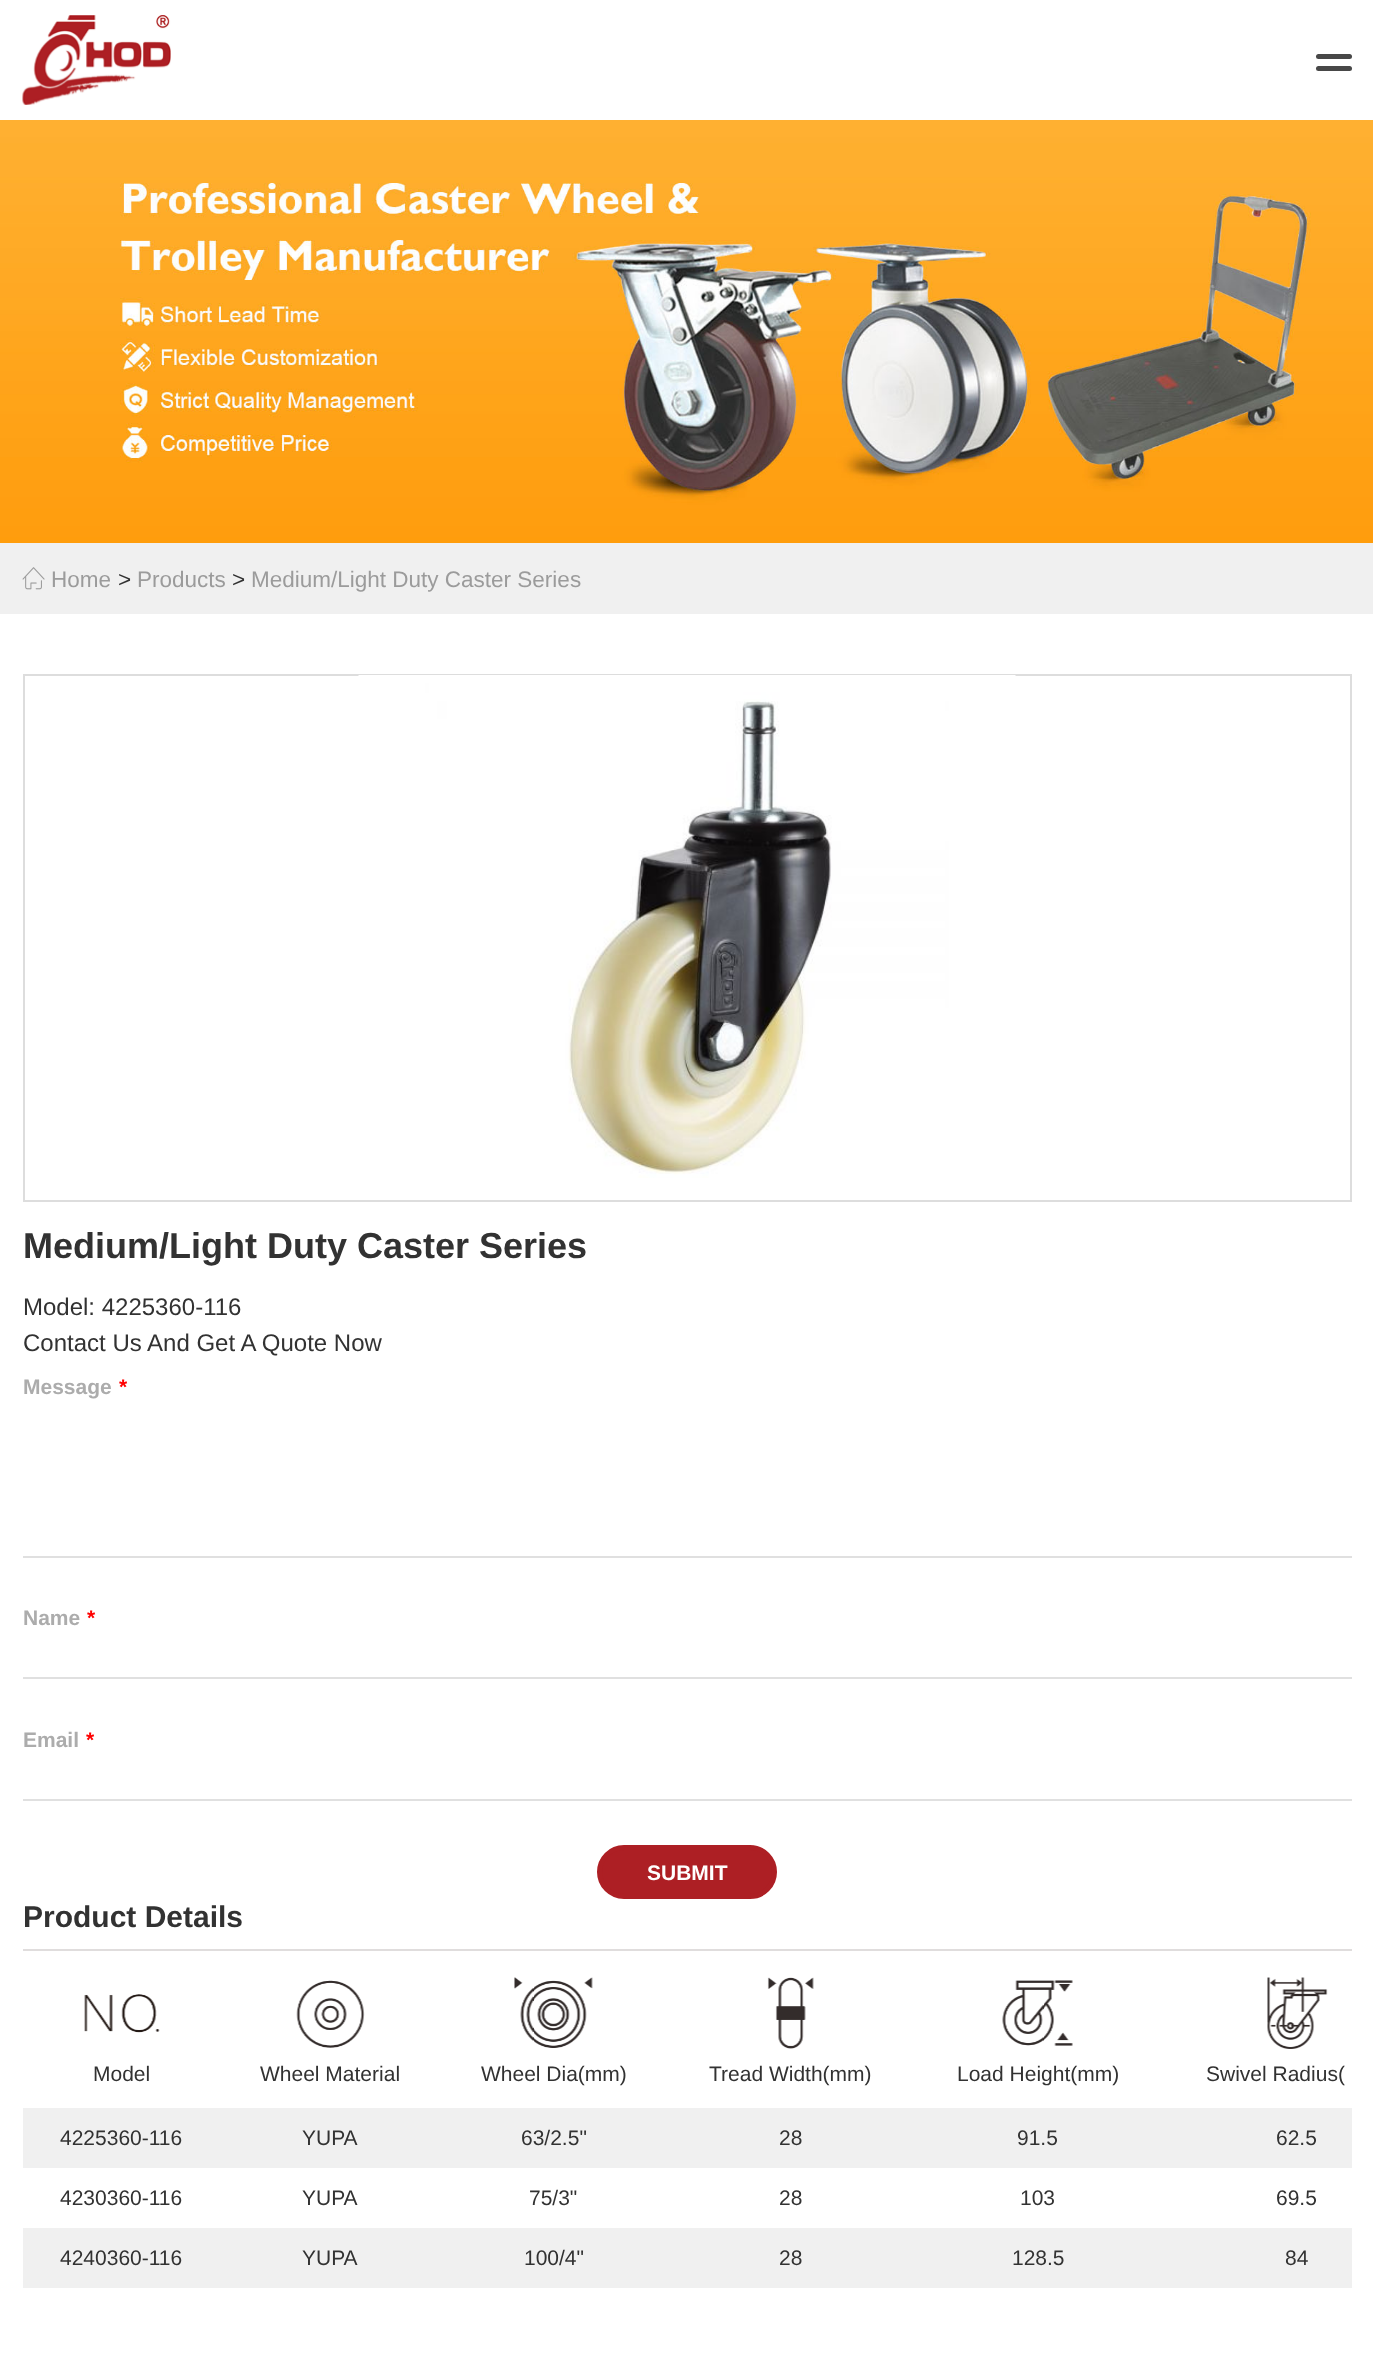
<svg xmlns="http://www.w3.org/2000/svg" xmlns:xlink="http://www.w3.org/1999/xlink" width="1373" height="2372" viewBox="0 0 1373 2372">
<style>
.cls-1{font:22.5px Liberation Sans;fill:#9b9b9b}
.cls-2{font:22.5px Liberation Sans;fill:#323232}
.cls-3{font:bold 36px Liberation Sans;fill:#323232}
.cls-4{font:24px Liberation Sans;fill:#323232}
.cls-5{font:bold 21px Liberation Sans;fill:#acacac}
.cls-6{font:bold 21px Liberation Sans;fill:#ff0000}
.cls-7{font:bold 21px Liberation Sans;fill:#ffffff}
.cls-8{font:bold 30px Liberation Sans;fill:#323232}
.cls-9{font:21px Liberation Sans;fill:#323232}
</style>
<rect width="100%" height="100%" fill="#ffffff"/>
<image xlink:href="image0.png" x="22" y="15" width="149" height="90"/>
<rect fill="#484848" x="1316" y="54" width="36" height="5" rx="2.5"/>
<rect fill="#484848" x="1316" y="66" width="36" height="5" rx="2.5"/>
<image xlink:href="image1.png" x="0" y="120" width="1373" height="423"/>
<rect fill="#f0f0f0" x="0" y="543" width="1373" height="71"/>
<image xlink:href="image2.png" x="22" y="567" width="23" height="23"/>
<rect fill="none" stroke="#dddddd" stroke-width="2" x="24" y="675" width="1327" height="526"/>
<image xlink:href="image3.png" x="358" y="675" width="658" height="503"/>
<rect fill="#e0e0e0" x="23" y="1556" width="1329" height="2"/>
<rect fill="#e0e0e0" x="23" y="1677" width="1329" height="2"/>
<rect fill="#e0e0e0" x="23" y="1799" width="1329" height="2"/>
<rect fill="#ad1f24" stroke="#ad1f24" stroke-width="5" x="599.5" y="1847.5" width="175" height="49" rx="24.5"/>
<rect fill="#e0dddd" x="23" y="1949" width="1329" height="2"/>
<image xlink:href="image4.png" x="84" y="1994" width="76" height="39"/>
<image xlink:href="image5.png" x="296" y="1980" width="69" height="68"/>
<image xlink:href="image6.png" x="514" y="1977" width="79" height="71"/>
<image xlink:href="image7.png" x="767" y="1977" width="47" height="72"/>
<image xlink:href="image8.png" x="1002" y="1980" width="71" height="66"/>
<image xlink:href="image9.png" x="1267" y="1977" width="61" height="72"/>
<rect fill="#f0f0f0" x="23" y="2108" width="1329" height="60"/>
<rect fill="#f0f0f0" x="23" y="2228" width="1329" height="60"/>
<text class="cls-1" x="51" y="587">Home</text>
<text class="cls-2" x="118" y="587">&gt;</text>
<text class="cls-1" x="137" y="587">Products</text>
<text class="cls-2" x="232" y="587">&gt;</text>
<text class="cls-1" x="251" y="587">Medium/Light Duty Caster Series</text>
<text class="cls-3" x="23" y="1258">Medium/Light Duty Caster Series</text>
<text class="cls-4"><tspan x="23" y="1315">Model: 4225360-116</tspan><tspan x="23" y="1351">Contact Us And Get A Quote Now</tspan></text>
<text class="cls-5" x="23" y="1394">Message</text>
<text class="cls-6" x="119" y="1394">*</text>
<text class="cls-5" x="23" y="1625">Name</text>
<text class="cls-6" x="87" y="1625">*</text>
<text class="cls-5" x="23" y="1747">Email</text>
<text class="cls-6" x="86" y="1747">*</text>
<text class="cls-7" x="647" y="1880">SUBMIT</text>
<text class="cls-8" x="23" y="1927">Product Details</text>
<text class="cls-9" x="93" y="2081">Model</text>
<text class="cls-9" x="260" y="2081">Wheel Material</text>
<text class="cls-9" x="481" y="2081">Wheel Dia(mm)</text>
<text class="cls-9" x="709" y="2081">Tread Width(mm)</text>
<text class="cls-9" x="957" y="2081">Load Height(mm)</text>
<text class="cls-9" x="1206" y="2081">Swivel Radius(</text>
<text class="cls-9" x="60" y="2145">4225360-116</text>
<text class="cls-9" x="302" y="2145">YUPA</text>
<text class="cls-9" x="521" y="2145">63/2.5"</text>
<text class="cls-9" x="779" y="2145">28</text>
<text class="cls-9" x="1017" y="2145">91.5</text>
<text class="cls-9" x="1276" y="2145">62.5</text>
<text class="cls-9" x="60" y="2205">4230360-116</text>
<text class="cls-9" x="302" y="2205">YUPA</text>
<text class="cls-9" x="529" y="2205">75/3"</text>
<text class="cls-9" x="779" y="2205">28</text>
<text class="cls-9" x="1020" y="2205">103</text>
<text class="cls-9" x="1276" y="2205">69.5</text>
<text class="cls-9" x="60" y="2265">4240360-116</text>
<text class="cls-9" x="302" y="2265">YUPA</text>
<text class="cls-9" x="524" y="2265">100/4"</text>
<text class="cls-9" x="779" y="2265">28</text>
<text class="cls-9" x="1012" y="2265">128.5</text>
<text class="cls-9" x="1285" y="2265">84</text>
</svg>
